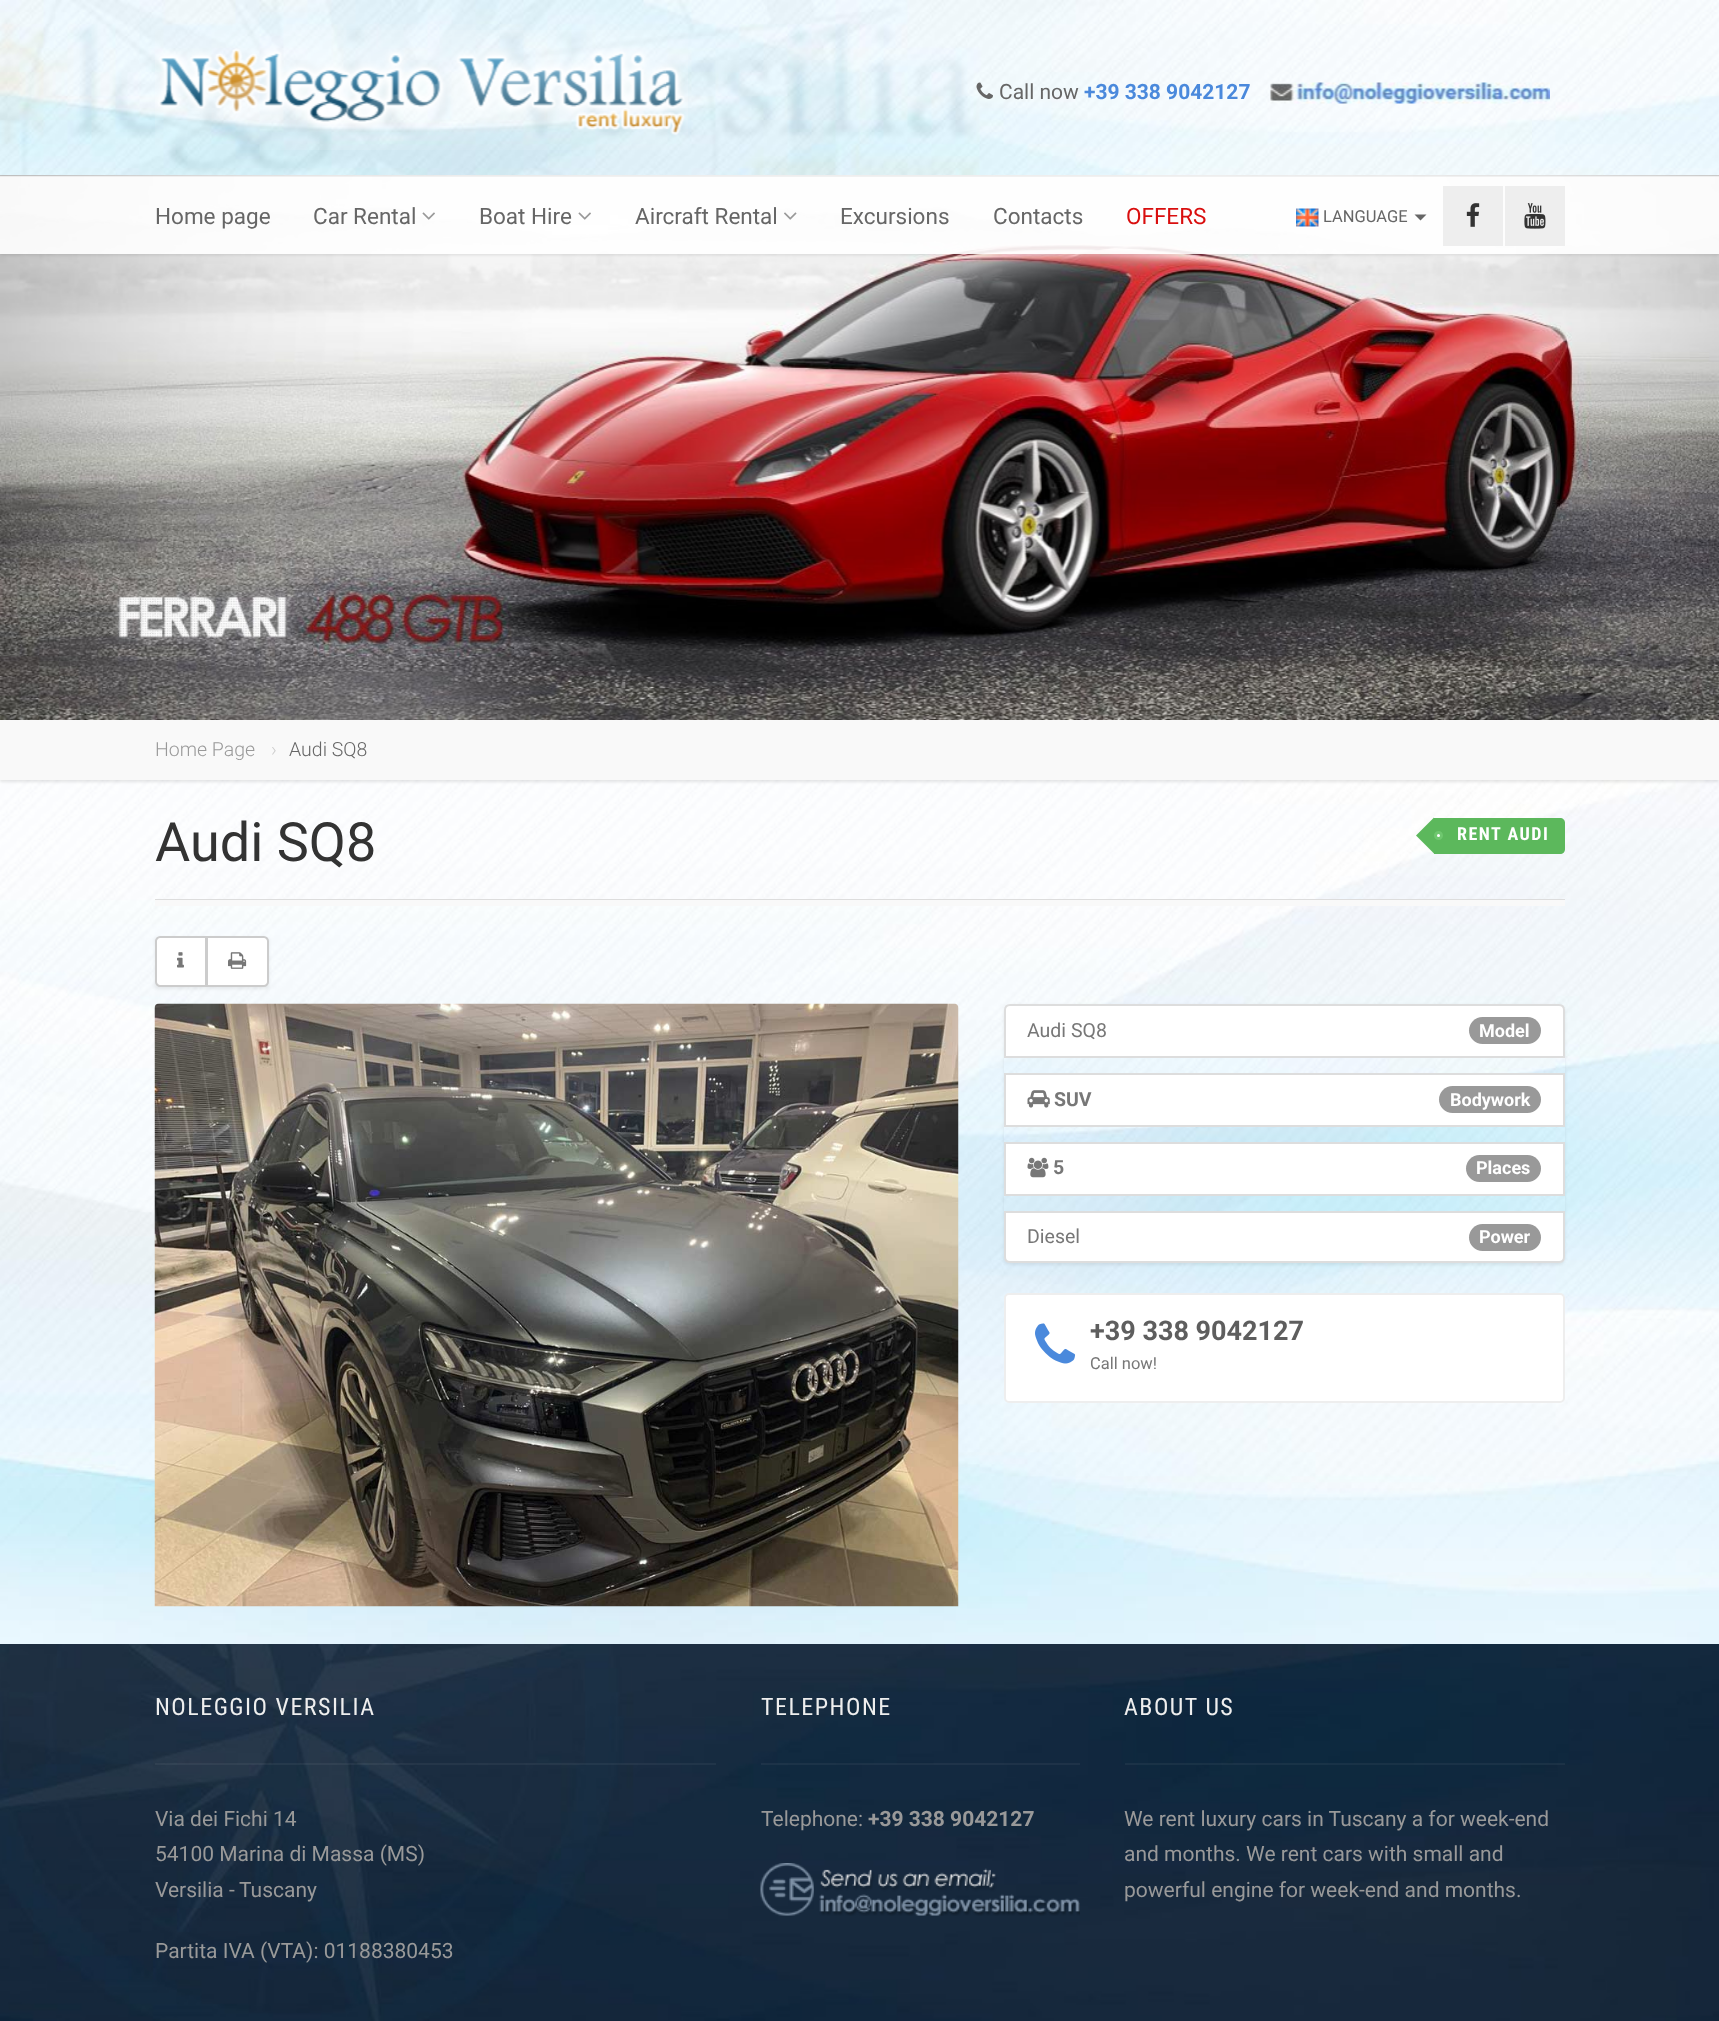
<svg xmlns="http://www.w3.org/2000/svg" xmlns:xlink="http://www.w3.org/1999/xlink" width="1719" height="2021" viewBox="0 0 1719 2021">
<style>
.cls-1{font:21px Roboto;fill:#666666}
.cls-2{font:bold 21px Roboto;fill:#4a89dc}
.cls-3{font:22.5px Roboto;fill:#666666}
.cls-4{font:22.5px Roboto;fill:#d90e0e}
.cls-5{font:16.5px Roboto;fill:#666666}
.cls-6{font:300 19.5px Roboto;fill:#999999}
.cls-7{font:300 19.5px Roboto;fill:#cccccc}
.cls-8{font:300 19.5px Roboto;fill:#666666}
.cls-9{font:54px Roboto;fill:#333333}
.cls-10{font:bold 18px Roboto Condensed;letter-spacing:1.5px;fill:#ffffff}
.cls-11{font:19.5px Roboto;fill:#777777}
.cls-12{font:bold 18px Roboto;fill:#ffffff}
.cls-13{font:bold 19.5px Roboto;fill:#777777}
.cls-14{font:bold 27px Roboto;fill:#5e5e5e}
.cls-15{font:16.5px Roboto;fill:#777777}
.cls-16{font:24px Roboto Condensed;letter-spacing:1.5px;fill:#eeeeee}
.cls-17{font:21px Roboto;fill:#999999}
.cls-18{font:bold 21px Roboto;fill:#999999}
</style>
<defs>
<clipPath id="clip1"><path d="M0 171H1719V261H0ZM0 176H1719V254H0Z" clip-rule="evenodd"/></clipPath>
<clipPath id="clip2"><path d="M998 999H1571V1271H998ZM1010 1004H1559C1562.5 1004 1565 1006.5 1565 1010V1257C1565 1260.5 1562.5 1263 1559 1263H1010C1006.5 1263 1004 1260.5 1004 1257V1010C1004 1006.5 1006.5 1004 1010 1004Z" clip-rule="evenodd"/></clipPath>
</defs>
<rect width="100%" height="100%" fill="#ffffff"/>
<image xlink:href="image10.png" x="0" y="175" width="1719" height="545"/>
<g clip-path="url(#clip1)">
<rect fill="#000000" fill-opacity="0.1" filter="blur(1.5px)" x="0" y="177" width="1719" height="78"/>
</g>
<rect fill="#ffffff" fill-opacity="0.9" x="0" y="176" width="1719" height="78"/>
<rect fill="#000000" fill-opacity="0.05" x="0" y="176" width="1719" height="1"/>
<image xlink:href="image0.png" x="0" y="0" width="1719" height="175"/>
<image xlink:href="image1.png" x="155" y="30" width="533" height="120"/>
<image xlink:href="image2.png" x="976" y="82" width="17" height="17"/>
<image xlink:href="image3.png" x="1270" y="82" width="280" height="22"/>
<image xlink:href="image4.png" x="422" y="212" width="13" height="8"/>
<image xlink:href="image5.png" x="578" y="212" width="13" height="8"/>
<image xlink:href="image6.png" x="784" y="212" width="13" height="8"/>
<image xlink:href="image7.png" x="1296" y="208" width="23" height="19"/>
<path fill="#666666" d="M1414.5 214.5H1426.5L1420.5 220.5Z"/>
<rect fill="#eeeeee" x="1443" y="186" width="60" height="60"/>
<image xlink:href="image8.png" x="1466" y="203" width="14" height="24"/>
<rect fill="#eeeeee" x="1505" y="186" width="60" height="60"/>
<image xlink:href="image9.png" x="1524" y="203" width="22" height="26"/>
<image xlink:href="image11.png" x="0" y="780" width="1719" height="864"/>
<rect fill="#000000" fill-opacity="0.1" filter="blur(1.5px)" x="0" y="722" width="1719" height="60"/>
<rect fill="#f9f9f9" x="0" y="720" width="1719" height="60"/>
<rect fill="#dddddd" x="155" y="899" width="1410" height="1"/>
<path fill="#5cb85c" d="M1434 818H1560C1563 818 1565 820 1565 823V849C1565 852 1563 854 1560 854H1434Z"/>
<path fill="#5cb85c" d="M1434 817.5V853.5L1416 835.5Z"/>
<circle fill="#ffffff" stroke="#6fc76f" stroke-width="3" cx="1438.5" cy="835.5" r="3"/>
<rect fill="#f9f9f9" x="155" y="900" width="1410" height="6"/>
<rect fill="#000000" fill-opacity="0.07" filter="blur(1.5px)" x="155" y="938" width="114" height="51"/>
<path fill="#ffffff" stroke="#cccccc" stroke-width="2" d="M160 937H206V986H160C158 986 156 984 156 982V941C156 939 158 937 160 937Z"/>
<image xlink:href="image12.png" x="177" y="952" width="7" height="16"/>
<path fill="#ffffff" stroke="#cccccc" stroke-width="2" d="M207 937H264C266 937 268 939 268 941V982C268 984 266 986 264 986H207Z"/>
<image xlink:href="image13.png" x="228" y="952" width="19" height="17"/>
<image xlink:href="image14.png" x="154" y="1003" width="805" height="604"/>
<g clip-path="url(#clip2)">
<rect fill="#000000" fill-opacity="0.07" filter="blur(1.5px)" x="1004" y="1005" width="561" height="260" rx="6"/>
</g>
<path fill="#ffffff" stroke="#dddddd" stroke-width="2" d="M1010 1005H1559C1562 1005 1564 1007 1564 1010V1057H1005V1010C1005 1007 1007 1005 1010 1005Z"/>
<rect fill="#999999" x="1469" y="1017" width="72" height="27" rx="13.5"/>
<rect fill="#ffffff" stroke="#dddddd" stroke-width="2" x="1005" y="1074" width="559" height="52"/>
<image xlink:href="image15.png" x="1027" y="1090" width="23" height="18"/>
<rect fill="#999999" x="1439" y="1086" width="102" height="27" rx="13.5"/>
<rect fill="#ffffff" stroke="#dddddd" stroke-width="2" x="1005" y="1143" width="559" height="52"/>
<image xlink:href="image16.png" x="1027" y="1157" width="22" height="21"/>
<rect fill="#999999" x="1466" y="1155" width="75" height="27" rx="13.5"/>
<path fill="#ffffff" stroke="#dddddd" stroke-width="2" d="M1005 1212H1564V1257C1564 1260 1562 1262 1559 1262H1010C1007 1262 1005 1260 1005 1257Z"/>
<rect fill="#999999" x="1469" y="1224" width="72" height="27" rx="13.5"/>
<rect fill="#ffffff" stroke="#eeeeee" stroke-width="2" x="1005" y="1294" width="559" height="108" rx="4"/>
<image xlink:href="image17.png" x="1035" y="1323" width="41" height="41"/>
<image xlink:href="image18.png" x="0" y="1644" width="1719" height="377"/>
<rect fill="#ffffff" fill-opacity="0.05" x="155" y="1763" width="561" height="2"/>
<rect fill="#ffffff" fill-opacity="0.05" x="761" y="1763" width="319" height="2"/>
<image xlink:href="image19.png" x="760" y="1863" width="320" height="53"/>
<rect fill="#ffffff" fill-opacity="0.05" x="1125" y="1763" width="440" height="2"/>
<text class="cls-1" x="999" y="99">Call now</text>
<text class="cls-2" x="1084" y="99">+39 338 9042127</text>
<text class="cls-3" x="155" y="224">Home page</text>
<text class="cls-3" x="313" y="224">Car Rental</text>
<text class="cls-3" x="479" y="224">Boat Hire</text>
<text class="cls-3" x="635" y="224">Aircraft Rental</text>
<text class="cls-3" x="840" y="224">Excursions</text>
<text class="cls-3" x="993" y="224">Contacts</text>
<text class="cls-4" x="1126" y="224">OFFERS</text>
<text class="cls-5" x="1323" y="222">LANGUAGE</text>
<text class="cls-6" x="155" y="756">Home Page</text>
<text class="cls-7" x="271" y="756">›</text>
<text class="cls-8" x="289" y="756">Audi SQ8</text>
<text class="cls-9" x="155" y="861">Audi SQ8</text>
<text class="cls-10" x="1457" y="840">RENT AUDI</text>
<text class="cls-11" x="1027" y="1037">Audi SQ8</text>
<text class="cls-12" x="1479" y="1037">Model</text>
<text class="cls-13" x="1054" y="1106">SUV</text>
<text class="cls-12" x="1450" y="1106">Bodywork</text>
<text class="cls-13" x="1053" y="1174">5</text>
<text class="cls-12" x="1476" y="1174">Places</text>
<text class="cls-11" x="1027" y="1243">Diesel</text>
<text class="cls-12" x="1479" y="1243">Power</text>
<text class="cls-14" x="1090" y="1340">+39 338 9042127</text>
<text class="cls-15" x="1090" y="1369">Call now!</text>
<text class="cls-16" x="155" y="1715">NOLEGGIO VERSILIA</text>
<text class="cls-17"><tspan x="155" y="1826">Via dei Fichi 14</tspan><tspan x="155" y="1861">54100 Marina di Massa (MS)</tspan><tspan x="155" y="1897">Versilia -</tspan></text>
<text class="cls-17" x="239" y="1897">Tuscany</text>
<text class="cls-17" x="155" y="1958">Partita IVA (VTA): 01188380453</text>
<text class="cls-16" x="761" y="1715">TELEPHONE</text>
<text class="cls-17" x="761" y="1826">Telephone:</text>
<text class="cls-18" x="868" y="1826">+39 338 9042127</text>
<text class="cls-16" x="1124" y="1715">ABOUT US</text>
<text class="cls-17"><tspan x="1124" y="1826">We rent luxury cars in Tuscany a for week-end</tspan><tspan x="1124" y="1861">and months. We rent cars with small and</tspan><tspan x="1124" y="1897">powerful engine for week-end and months.</tspan></text>
</svg>
